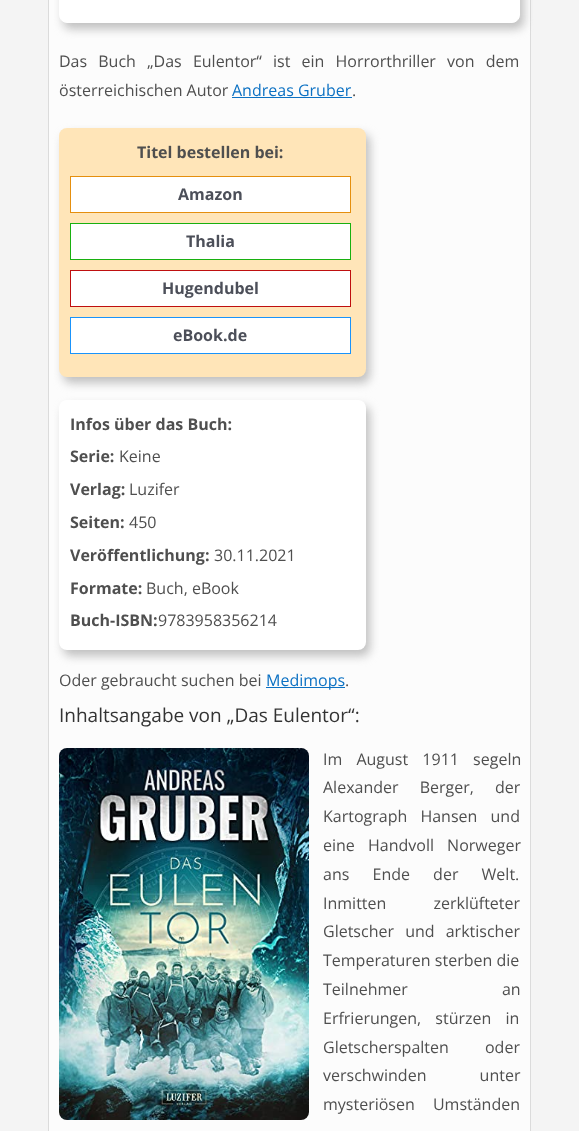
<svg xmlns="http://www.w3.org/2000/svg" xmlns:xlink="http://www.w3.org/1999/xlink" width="579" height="1131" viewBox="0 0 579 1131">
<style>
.cls-1{font:16px Open Sans;fill:#4f4f4f}
.cls-2{font:16px Open Sans;fill:#0c71c3}
.cls-3{font:bold 16px Open Sans;fill:#4f4f4f}
.cls-4{font:bold 16px Open Sans;fill:#4c4f59}
.cls-5{font:19px Open Sans;fill:#333333}
</style>
<rect width="100%" height="100%" fill="#f4f4f4"/>
<rect fill="#fcfcfc" stroke="#dbdbdb" x="48.5" y="-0.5" width="482" height="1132"/>
<rect fill="#c0c0c0" filter="blur(5px)" x="63" y="-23" width="461" height="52" rx="8"/>
<rect fill="#ffffff" stroke="#ffffff" x="59.5" y="-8.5" width="460" height="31" rx="7.5"/>
<rect fill="#0c71c3" x="232" y="97" width="120" height="1"/>
<rect fill="#c0c0c0" filter="blur(5px)" x="63" y="134" width="307" height="249" rx="8"/>
<rect fill="#ffe5b8" x="59" y="128" width="307" height="249" rx="8"/>
<rect fill="#ffffff" stroke="#e58f0e" x="70.5" y="176.5" width="280" height="36"/>
<rect fill="#ffffff" stroke="#18b010" x="70.5" y="223.5" width="280" height="36"/>
<rect fill="#ffffff" stroke="#bf0f0f" x="70.5" y="270.5" width="280" height="36"/>
<rect fill="#ffffff" stroke="#1993fb" x="70.5" y="317.5" width="280" height="36"/>
<rect fill="#c0c0c0" filter="blur(5px)" x="63" y="406" width="307" height="250" rx="8"/>
<rect fill="#ffffff" x="59" y="400" width="307" height="250" rx="8"/>
<rect fill="#0c71c3" x="266" y="687" width="79" height="1"/>
<image xlink:href="image0.png" x="59" y="748" width="250" height="372"/>
<text class="cls-1"><tspan x="59" y="67" word-spacing="7">Das Buch „Das Eulentor“ ist ein Horrorthriller von dem</tspan><tspan x="59" y="96">österreichischen Autor</tspan></text>
<text class="cls-2" x="232" y="96">Andreas Gruber</text>
<text class="cls-1" x="352" y="96">.</text>
<text class="cls-3" x="137" y="158">Titel bestellen bei:</text>
<text class="cls-4" x="178" y="200">Amazon</text>
<text class="cls-4" x="186" y="247">Thalia</text>
<text class="cls-4" x="162" y="294">Hugendubel</text>
<text class="cls-4" x="173" y="341">eBook.de</text>
<text class="cls-3" x="70" y="430">Infos über das Buch:</text>
<text class="cls-3" x="70" y="462">Serie:</text>
<text class="cls-1" x="119" y="462">Keine</text>
<text class="cls-3" x="70" y="495">Verlag:</text>
<text class="cls-1" x="129" y="495">Luzifer</text>
<text class="cls-3" x="70" y="528">Seiten:</text>
<text class="cls-1" x="129" y="528">450</text>
<text class="cls-3" x="70" y="561">Veröffentlichung:</text>
<text class="cls-1" x="214" y="561">30.11.2021</text>
<text class="cls-3" x="70" y="594">Formate:</text>
<text class="cls-1" x="146" y="594">Buch, eBook</text>
<text class="cls-3" x="70" y="626">Buch-ISBN:</text>
<text class="cls-1" x="158" y="626"> 9783958356214</text>
<text class="cls-1" x="59" y="686">Oder gebraucht suchen bei</text>
<text class="cls-2" x="266" y="686">Medimops</text>
<text class="cls-1" x="345" y="686">.</text>
<text class="cls-5" x="59" y="722">Inhaltsangabe von „Das Eulentor“:</text>
<text class="cls-1"><tspan x="323" y="765" word-spacing="10">Im August 1911 segeln</tspan><tspan x="323" y="793" word-spacing="17">Alexander Berger, der</tspan><tspan x="323" y="822" word-spacing="9">Kartograph Hansen und</tspan><tspan x="323" y="851" word-spacing="9">eine Handvoll Norweger</tspan><tspan x="323" y="880" word-spacing="19">ans Ende der Welt.</tspan><tspan x="323" y="909" word-spacing="43">Inmitten zerklüfteter</tspan><tspan x="323" y="937" word-spacing="7">Gletscher und arktischer</tspan><tspan x="323" y="966">Temperaturen sterben die</tspan><tspan x="323" y="995" word-spacing="90">Teilnehmer an</tspan><tspan x="323" y="1024" word-spacing="10">Erfrierungen, stürzen in</tspan><tspan x="323" y="1053" word-spacing="32">Gletscherspalten oder</tspan><tspan x="323" y="1081" word-spacing="49">verschwinden unter</tspan><tspan x="323" y="1110" word-spacing="14">mysteriösen Umständen</tspan></text>
</svg>
